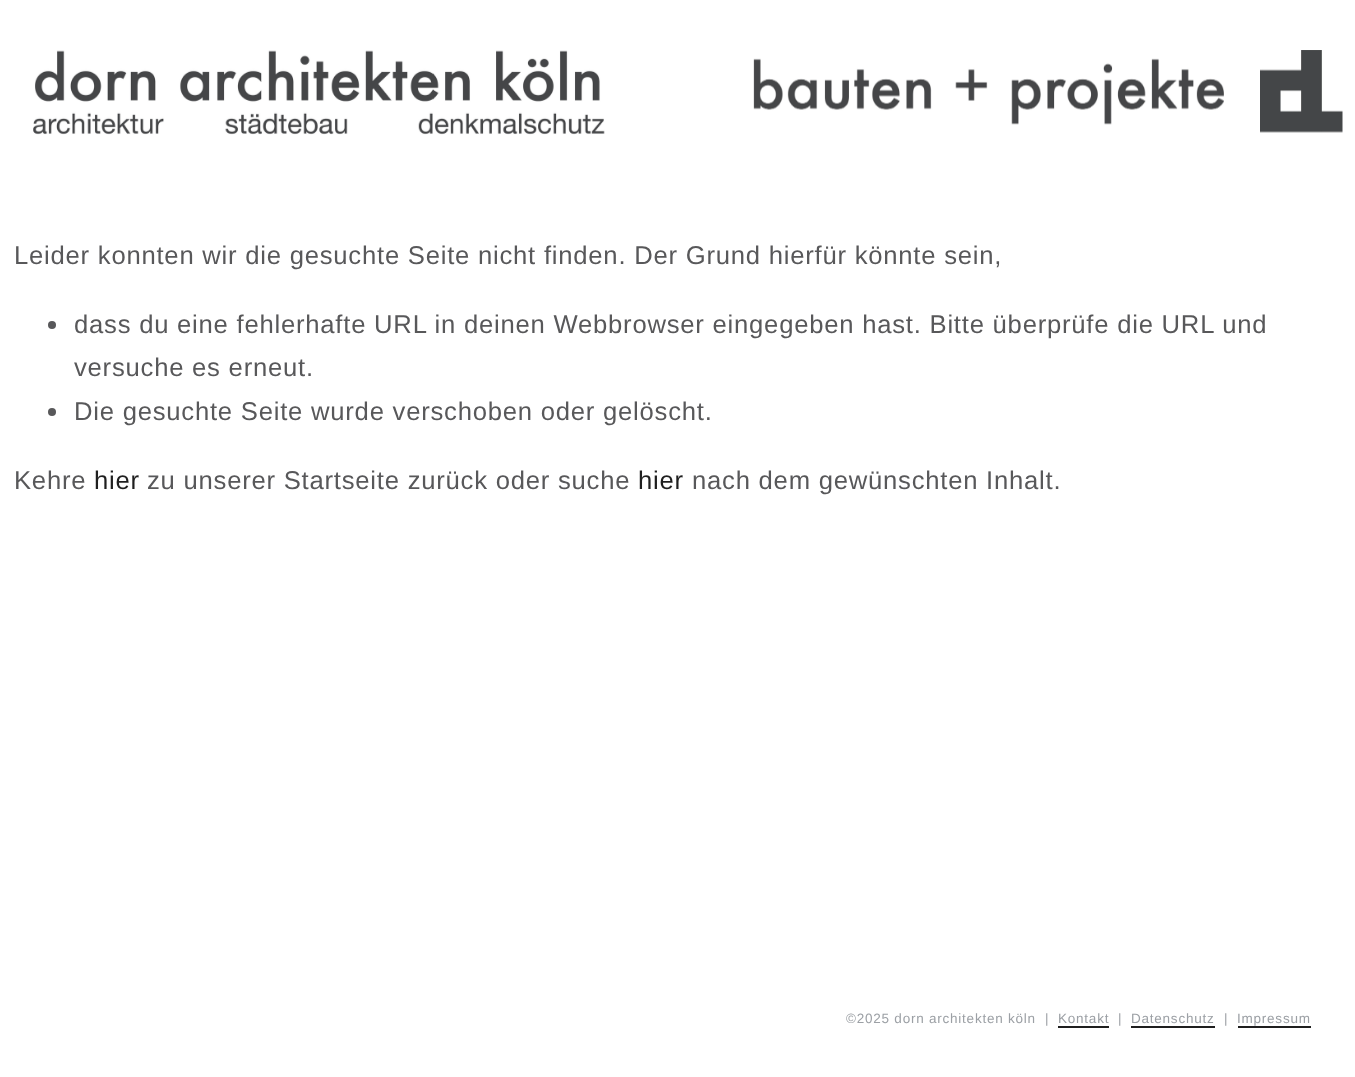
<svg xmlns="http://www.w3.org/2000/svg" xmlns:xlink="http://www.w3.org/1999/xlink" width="1355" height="1077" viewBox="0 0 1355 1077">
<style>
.cls-1{font:25.65px Liberation Sans;letter-spacing:0.77px;fill:#58585a}
.cls-2{font:25.65px Liberation Sans;letter-spacing:0.77px;fill:#1f1f1f}
.cls-3{font:13.5px Liberation Sans;letter-spacing:0.77px;fill:#9ca0a5}
</style>
<rect width="100%" height="100%" fill="#ffffff"/>
<image xlink:href="image0.png" x="33" y="50" width="572" height="85"/>
<image xlink:href="image1.png" x="753" y="58" width="471" height="67"/>
<image xlink:href="image2.png" x="1260" y="50" width="83" height="83"/>
<circle fill="#58585a" cx="52" cy="325" r="4"/>
<circle fill="#58585a" cx="52" cy="412" r="4"/>
<rect fill="#1f1f1f" x="1058" y="1026" width="51" height="2"/>
<rect fill="#1f1f1f" x="1131" y="1026" width="84" height="2"/>
<rect fill="#1f1f1f" x="1238" y="1026" width="73" height="2"/>
<text class="cls-1" x="14" y="264">Leider konnten wir die gesuchte Seite nicht finden. Der Grund hierfür könnte sein,</text>
<text class="cls-1"><tspan x="74" y="333">dass du eine fehlerhafte URL in deinen Webbrowser eingegeben hast. Bitte überprüfe die URL und</tspan><tspan x="74" y="376">versuche es erneut.</tspan><tspan x="74" y="420">Die gesuchte Seite wurde verschoben oder gelöscht.</tspan></text>
<text class="cls-1" x="14" y="489">Kehre</text>
<text class="cls-2" x="94" y="489">hier</text>
<text class="cls-1" x="147" y="489">zu unserer Startseite zurück oder suche</text>
<text class="cls-2" x="638" y="489">hier</text>
<text class="cls-1" x="692" y="489">nach dem gewünschten Inhalt.</text>
<text class="cls-3" xml:space="preserve" x="846" y="1023">©2025 dorn architekten köln  |</text>
<text class="cls-3" x="1058" y="1023">Kontakt</text>
<text class="cls-3" x="1118" y="1023">|</text>
<text class="cls-3" x="1131" y="1023">Datenschutz</text>
<text class="cls-3" x="1224" y="1023">|</text>
<text class="cls-3" x="1237" y="1023">Impressum</text>
</svg>
